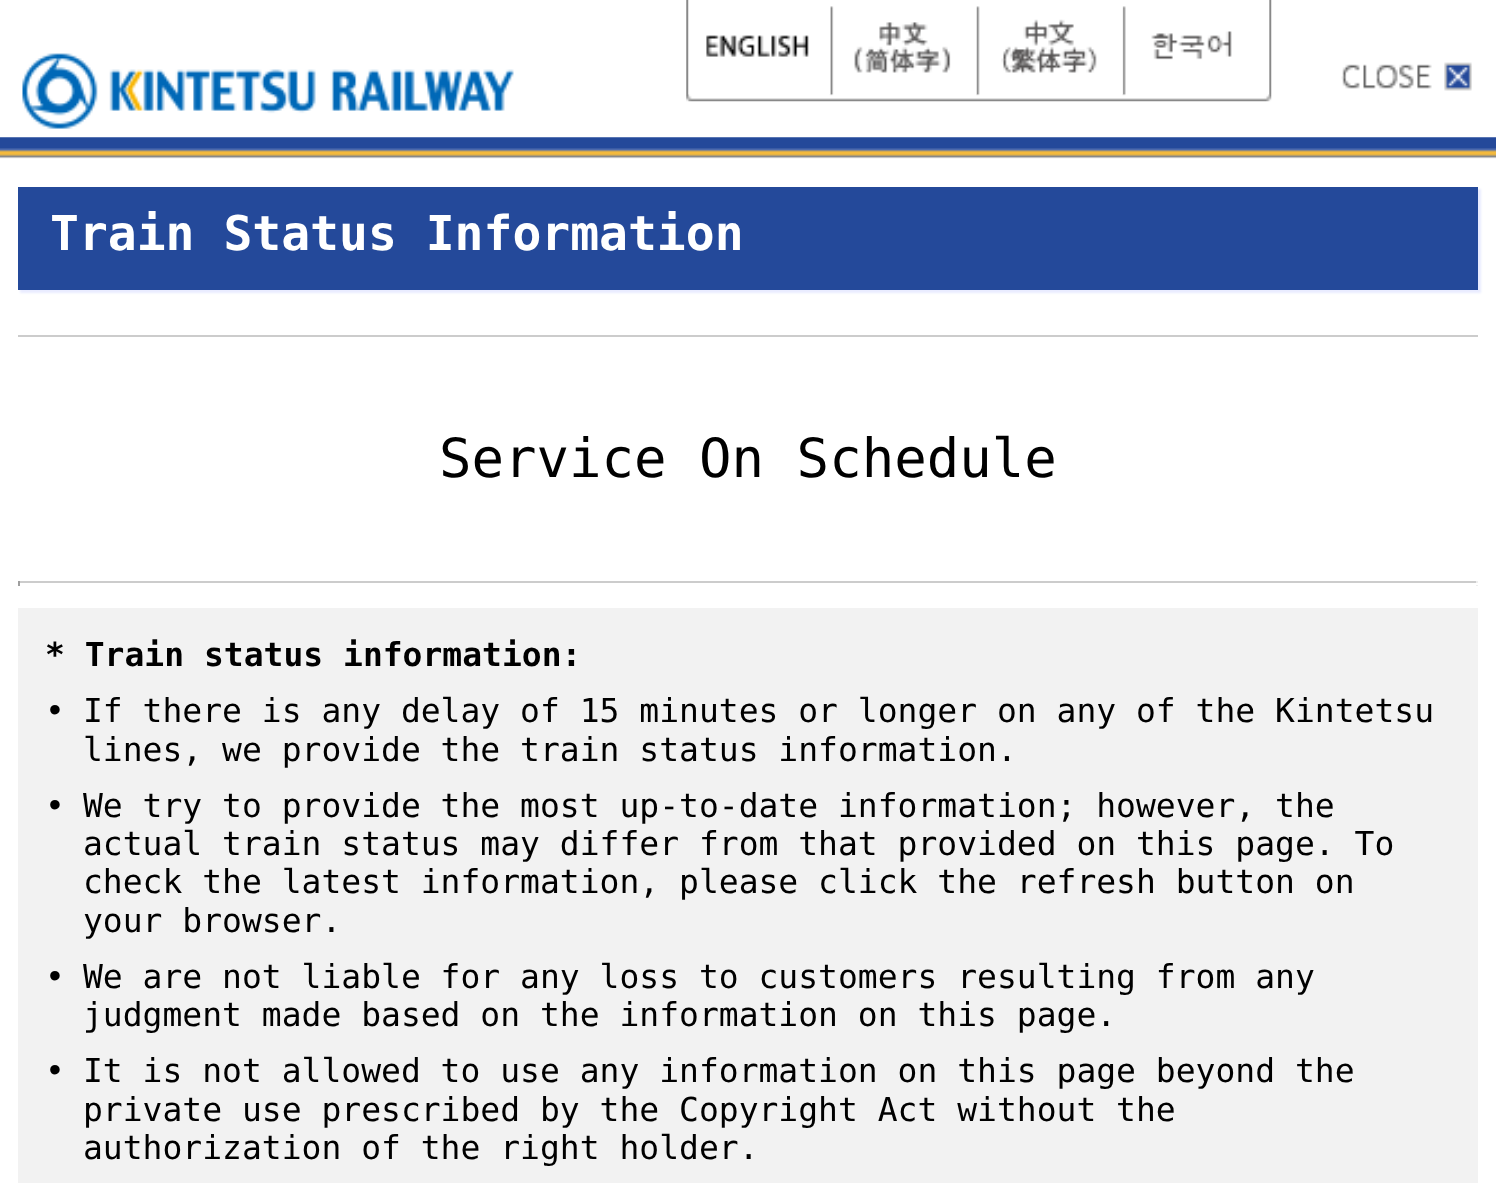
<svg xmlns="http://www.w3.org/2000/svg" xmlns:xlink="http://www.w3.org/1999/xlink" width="1496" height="1183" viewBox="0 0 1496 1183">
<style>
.cls-1{font:bold 48px DejaVu Sans Mono;fill:#ffffff}
.cls-2{font:54px DejaVu Sans Mono;fill:#000000}
.cls-3{font:bold 33px DejaVu Sans Mono;fill:#000000}
.cls-4{font:33px DejaVu Sans Mono;fill:#000000}
</style>
<rect width="100%" height="100%" fill="#ffffff"/>
<image xlink:href="image0.png" x="22" y="53" width="492" height="76"/>
<image xlink:href="image1.png" x="686" y="0" width="586" height="102"/>
<image xlink:href="image2.png" x="688" y="0" width="143" height="95"/>
<image xlink:href="image3.png" x="854" y="6" width="123" height="89"/>
<image xlink:href="image4.png" x="1001" y="6" width="122" height="89"/>
<image xlink:href="image5.png" x="1151" y="0" width="118" height="95"/>
<image xlink:href="image6.png" x="1341" y="62" width="131" height="29"/>
<image xlink:href="image7.png" x="0" y="137" width="1496" height="22"/>
<rect fill="#e9ecff" filter="blur(1px)" x="20" y="189" width="1461" height="104"/>
<rect fill="#24499a" x="18" y="187" width="1460" height="103"/>
<rect fill="#cccccc" x="18" y="335" width="1460" height="2"/>
<rect fill="#cccccc" x="18" y="581" width="1460" height="2"/>
<rect fill="#eeeeee" x="1476" y="581" width="2" height="5"/>
<rect fill="#ffffff" x="1476" y="583" width="2" height="2"/>
<rect fill="#9f9f9f" x="18" y="581" width="2" height="5"/>
<rect fill="#f2f2f2" x="18" y="608" width="1460" height="575"/>
<text class="cls-1" x="50" y="250">Train Status Information</text>
<text class="cls-2" x="439" y="477">Service On Schedule</text>
<text class="cls-3" x="45" y="666">* Train status information:</text>
<text class="cls-4" x="45" y="722">•</text>
<text class="cls-4"><tspan x="83" y="722">If there is any delay of 15 minutes or longer on any of the Kintetsu</tspan><tspan x="83" y="761">lines, we provide the train status information.</tspan></text>
<text class="cls-4" x="45" y="817">•</text>
<text class="cls-4"><tspan x="83" y="817">We try to provide the most up-to-date information; however, the</tspan><tspan x="83" y="855">actual train status may differ from that provided on this page. To</tspan><tspan x="83" y="893">check the latest information, please click the refresh button on</tspan><tspan x="83" y="932">your browser.</tspan></text>
<text class="cls-4" x="45" y="988">•</text>
<text class="cls-4"><tspan x="83" y="988">We are not liable for any loss to customers resulting from any</tspan><tspan x="83" y="1026">judgment made based on the information on this page.</tspan></text>
<text class="cls-4" x="45" y="1082">•</text>
<text class="cls-4"><tspan x="83" y="1082">It is not allowed to use any information on this page beyond the</tspan><tspan x="83" y="1121">private use prescribed by the Copyright Act without the</tspan><tspan x="83" y="1159">authorization of the right holder.</tspan></text>
</svg>
